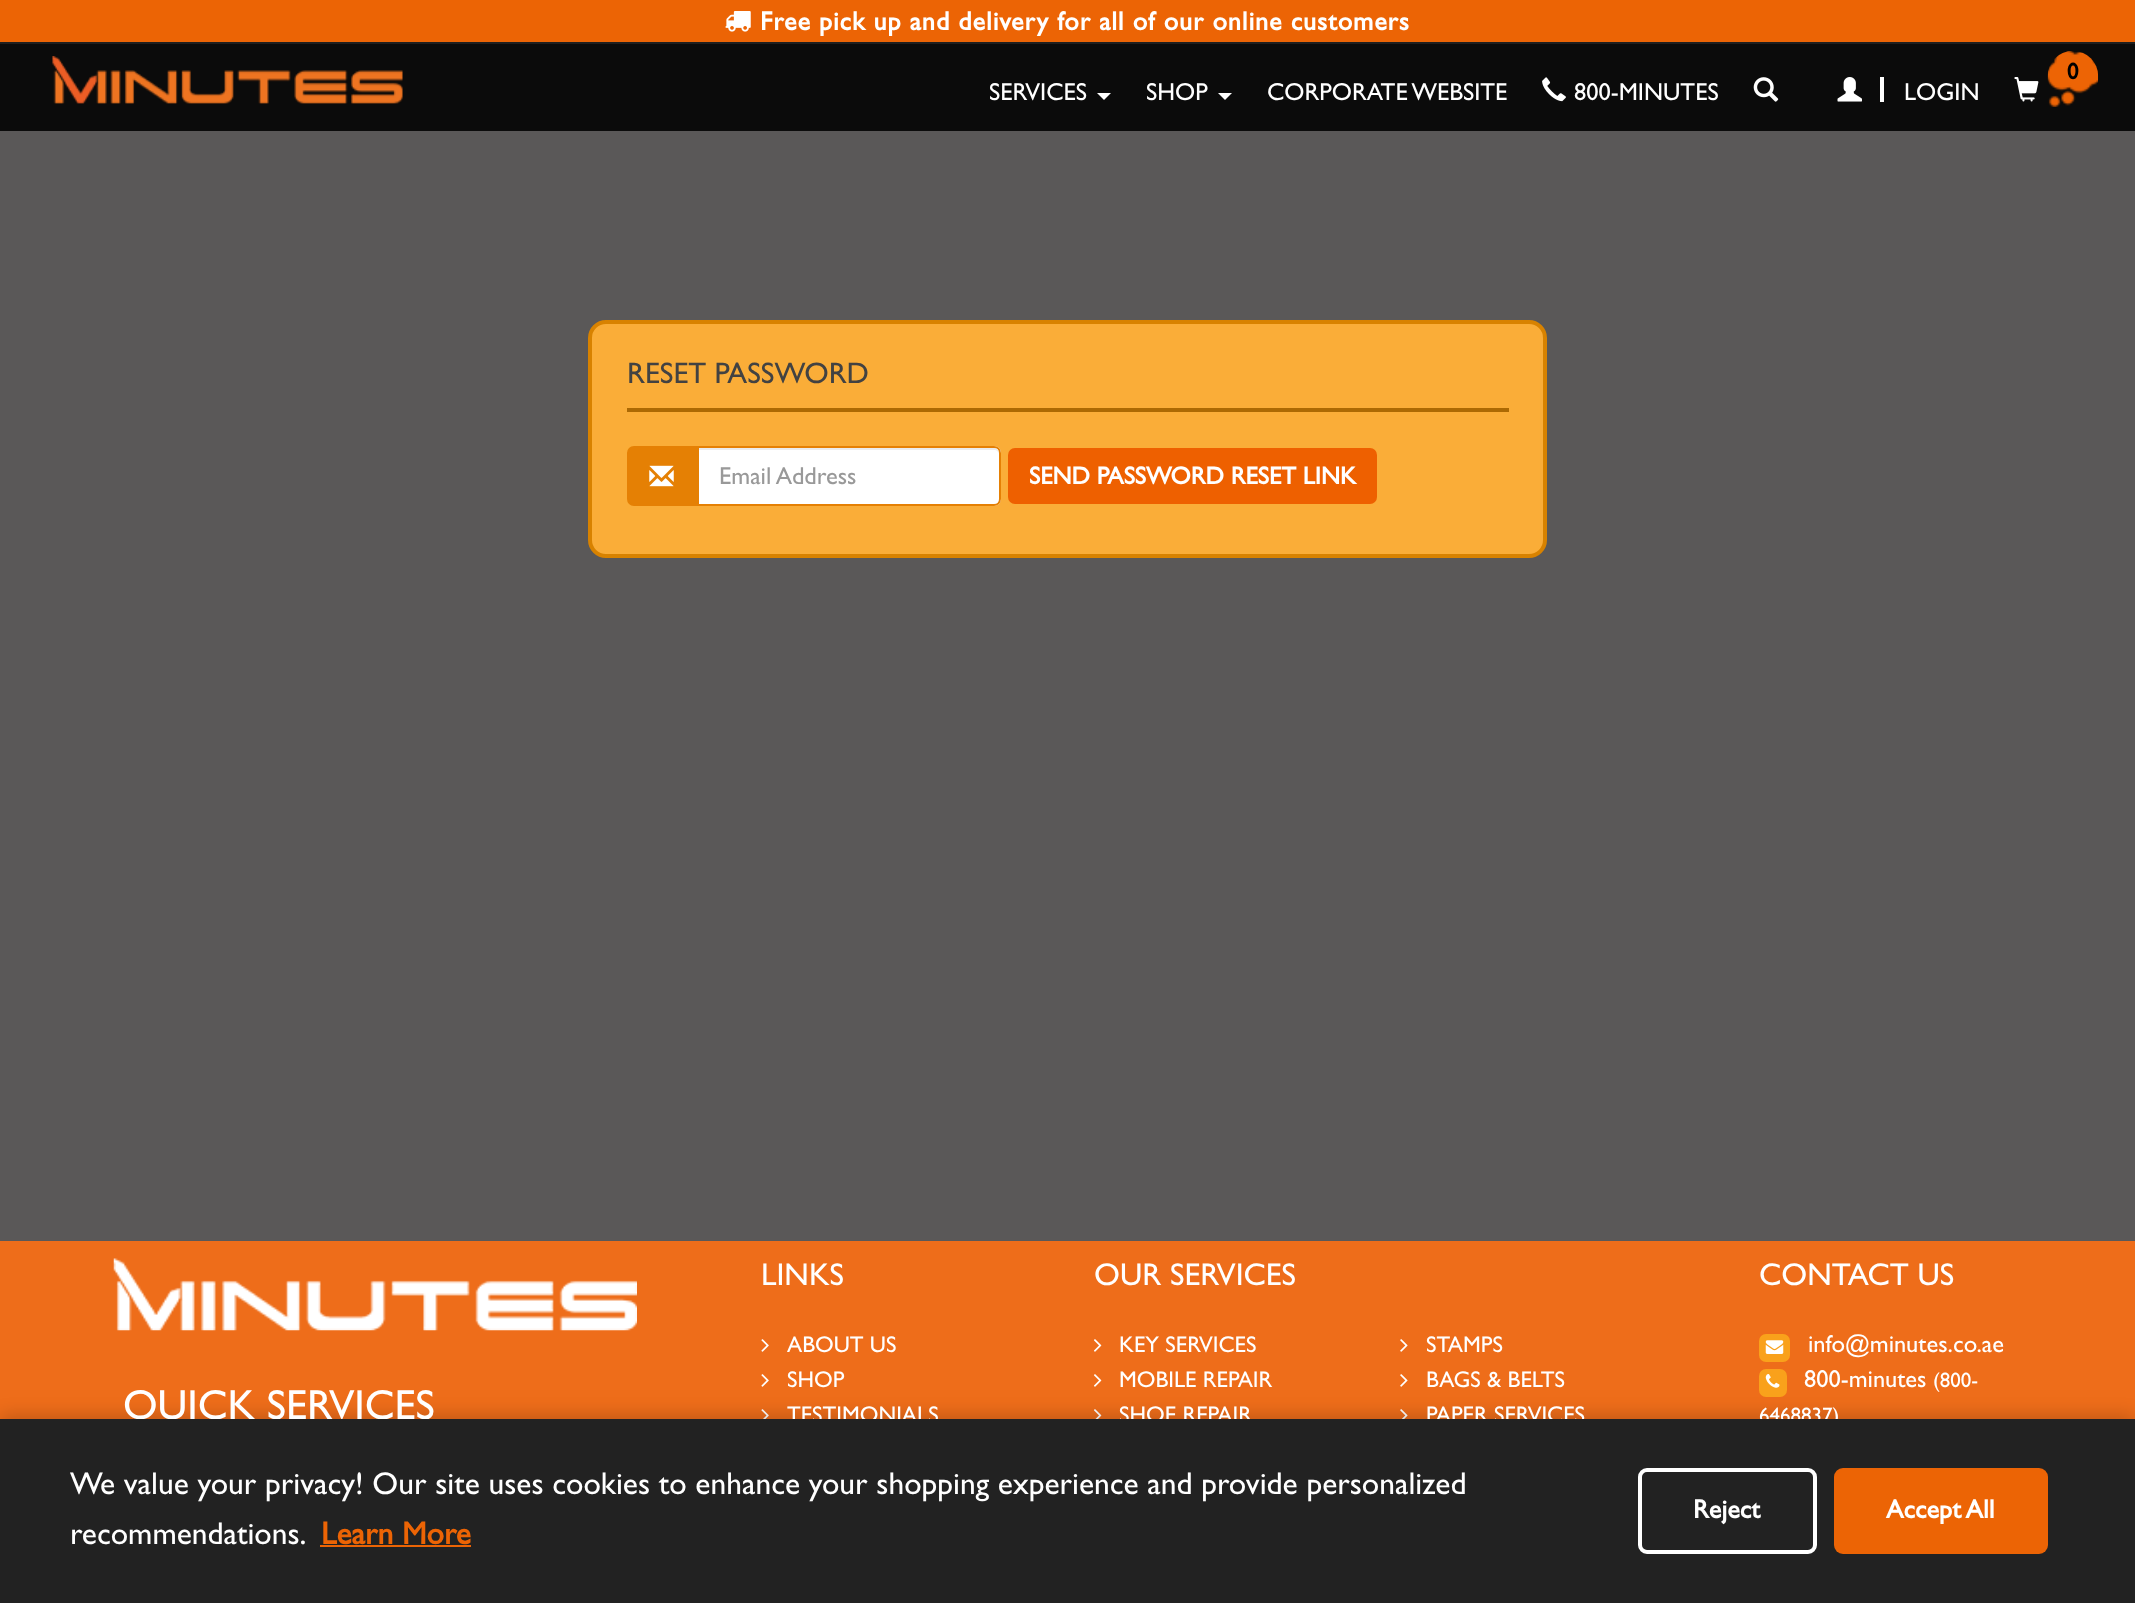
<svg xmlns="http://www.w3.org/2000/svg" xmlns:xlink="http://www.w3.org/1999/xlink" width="2135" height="1603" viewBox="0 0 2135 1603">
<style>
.cls-1{font:bold 26.25px Gill Sans;letter-spacing:0.88px;fill:#ffffff}
.cls-2{font:bold 22.75px Gill Sans;fill:#000000}
.cls-3{font:500 24.5px Gill Sans;fill:#ffffff}
.cls-4{font:500 29.75px Gill Sans;fill:#424242}
.cls-5{font:500 24.5px Gill Sans;fill:#999999}
.cls-6{font:bold 24.5px Gill Sans;fill:#ffffff}
.cls-7{font:500 42px Gill Sans;fill:#ffffff}
.cls-8{font:500 31.5px Gill Sans;fill:#ffffff}
.cls-9{font:500 22.75px Gill Sans;fill:#ffffff}
.cls-10{font:500 21px Gill Sans;fill:#ffffff}
.cls-11{font:bold 31.5px Gill Sans;fill:#ec6405}
.cls-12{font:bold 26.25px Gill Sans;fill:#ffffff}
</style>
<rect width="100%" height="100%" fill="#ee6d1a"/>
<rect fill="#ec6405" x="0" y="0" width="2135" height="42"/>
<rect fill="#1f1f1f" x="0" y="42" width="2135" height="2"/>
<image xlink:href="image0.png" x="725" y="11" width="26" height="21"/>
<rect fill="#0b0b0b" x="0" y="44" width="2135" height="87"/>
<image xlink:href="image1.png" x="52" y="56" width="351" height="48"/>
<image xlink:href="image2.png" x="2047" y="51" width="52" height="56"/>
<image xlink:href="image3.png" x="2014" y="77" width="25" height="25"/>
<path fill="#ffffff" d="M1097 93H1111L1104 100Z"/>
<path fill="#ffffff" d="M1218 93H1232L1225 100Z"/>
<image xlink:href="image4.png" x="1542" y="77" width="24" height="25"/>
<image xlink:href="image5.png" x="1753" y="77" width="26" height="25"/>
<rect fill="#ffffff" x="1880" y="77" width="4" height="25"/>
<image xlink:href="image6.png" x="1837" y="77" width="25" height="25"/>
<rect fill="#5a5858" x="0" y="131" width="2135" height="1110"/>
<rect fill="#faad38" stroke="#d88200" stroke-width="4" x="590" y="322" width="955" height="234" rx="16"/>
<rect fill="#ac6903" x="627" y="408" width="882" height="4"/>
<path fill="#e58004" stroke="#e58004" stroke-width="2" d="M634 447H696V505H634C630.5 505 628 502.5 628 499V453C628 449.5 630.5 447 634 447Z"/>
<image xlink:href="image7.png" x="649" y="465" width="25" height="22"/>
<path fill="#ffffff" d="M697 446H994C998 446 1001 449 1001 453V499C1001 503 998 506 994 506H697Z"/>
<path fill="#ececec" d="M698 450H994C997 450 999 452 999 455C999 452 998 448 994 448H698Z"/>
<path fill="none" stroke="#e58004" stroke-width="2" d="M698 447H994C997.5 447 1000 449.5 1000 453V499C1000 502.5 997.5 505 994 505H698Z"/>
<rect fill="#ee6000" x="1008" y="448" width="369" height="56" rx="7"/>
<image xlink:href="image8.png" x="113" y="1258" width="524" height="73"/>
<image xlink:href="image9.png" x="761" y="1339" width="8" height="13"/>
<image xlink:href="image9.png" x="761" y="1374" width="8" height="13"/>
<image xlink:href="image10.png" x="761" y="1409" width="8" height="10"/>
<image xlink:href="image11.png" x="1094" y="1339" width="8" height="13"/>
<image xlink:href="image11.png" x="1094" y="1374" width="8" height="13"/>
<image xlink:href="image12.png" x="1094" y="1409" width="8" height="10"/>
<image xlink:href="image13.png" x="1400" y="1339" width="8" height="13"/>
<image xlink:href="image13.png" x="1400" y="1374" width="8" height="13"/>
<image xlink:href="image14.png" x="1400" y="1409" width="8" height="10"/>
<rect fill="#f9a11b" x="1759" y="1334" width="31" height="28" rx="7"/>
<image xlink:href="image15.png" x="1765" y="1340" width="19" height="14"/>
<rect fill="#f9a11b" x="1759" y="1369" width="28" height="28" rx="7"/>
<image xlink:href="image16.png" x="1765" y="1374" width="15" height="14"/>
<rect fill="#000000" fill-opacity="0.2" filter="blur(9px)" x="0" y="1416" width="2135" height="184"/>
<text class="cls-1" x="760" y="30">Free pick up and delivery for all of our online customers</text>
<text class="cls-2" x="2067" y="79">0</text>
<text class="cls-3" x="989" y="100">SERVICES</text>
<text class="cls-3" x="1146" y="100">SHOP</text>
<text class="cls-3" x="1267" y="100">CORPORATE WEBSITE</text>
<text class="cls-3" x="1574" y="100">800-MINUTES</text>
<text class="cls-3" x="1904" y="100">LOGIN</text>
<text class="cls-4" x="627" y="383">RESET PASSWORD</text>
<text class="cls-5" x="719" y="484">Email Address</text>
<text class="cls-6" x="1029" y="484">SEND PASSWORD RESET LINK</text>
<text class="cls-7" x="123" y="1419">QUICK SERVICES</text>
<text class="cls-8" x="761" y="1285">LINKS</text>
<text class="cls-9"><tspan x="787" y="1352">ABOUT US</tspan><tspan x="787" y="1387">SHOP</tspan><tspan x="787" y="1422">TESTIMONIALS</tspan></text>
<text class="cls-8" x="1094" y="1285">OUR SERVICES</text>
<text class="cls-9"><tspan x="1119" y="1352">KEY SERVICES</tspan><tspan x="1119" y="1387">MOBILE REPAIR</tspan><tspan x="1119" y="1422">SHOE REPAIR</tspan></text>
<text class="cls-9"><tspan x="1426" y="1352">STAMPS</tspan><tspan x="1426" y="1387">BAGS &amp; BELTS</tspan><tspan x="1426" y="1422">PAPER SERVICES</tspan></text>
<text class="cls-8" x="1759" y="1285">CONTACT US</text>
<text class="cls-3" x="1808" y="1352">info@minutes.co.ae</text>
<text class="cls-3" x="1804" y="1387">800-minutes</text>
<text class="cls-10" x="1933" y="1387">(800-</text>
<text class="cls-10" x="1759" y="1422">6468837)</text>
<rect fill="#222222" x="0" y="1419" width="2135" height="184"/>
<text class="cls-8"><tspan x="70" y="1494">We value your privacy! Our site uses cookies to enhance your shopping experience and provide personalized</tspan><tspan x="70" y="1544">recommendations.</tspan></text>
<text class="cls-11" x="321" y="1544">Learn More</text>
<rect fill="#ec6405" x="320" y="1545" width="151" height="2"/>
<rect fill="none" stroke="#ffffff" stroke-width="4" x="1640" y="1470" width="175" height="82" rx="7"/>
<text class="cls-12" x="1693" y="1518">Reject</text>
<rect fill="#ec6405" x="1834" y="1468" width="214" height="86" rx="9"/>
<text class="cls-12" x="1886" y="1518">Accept All</text>
</svg>
